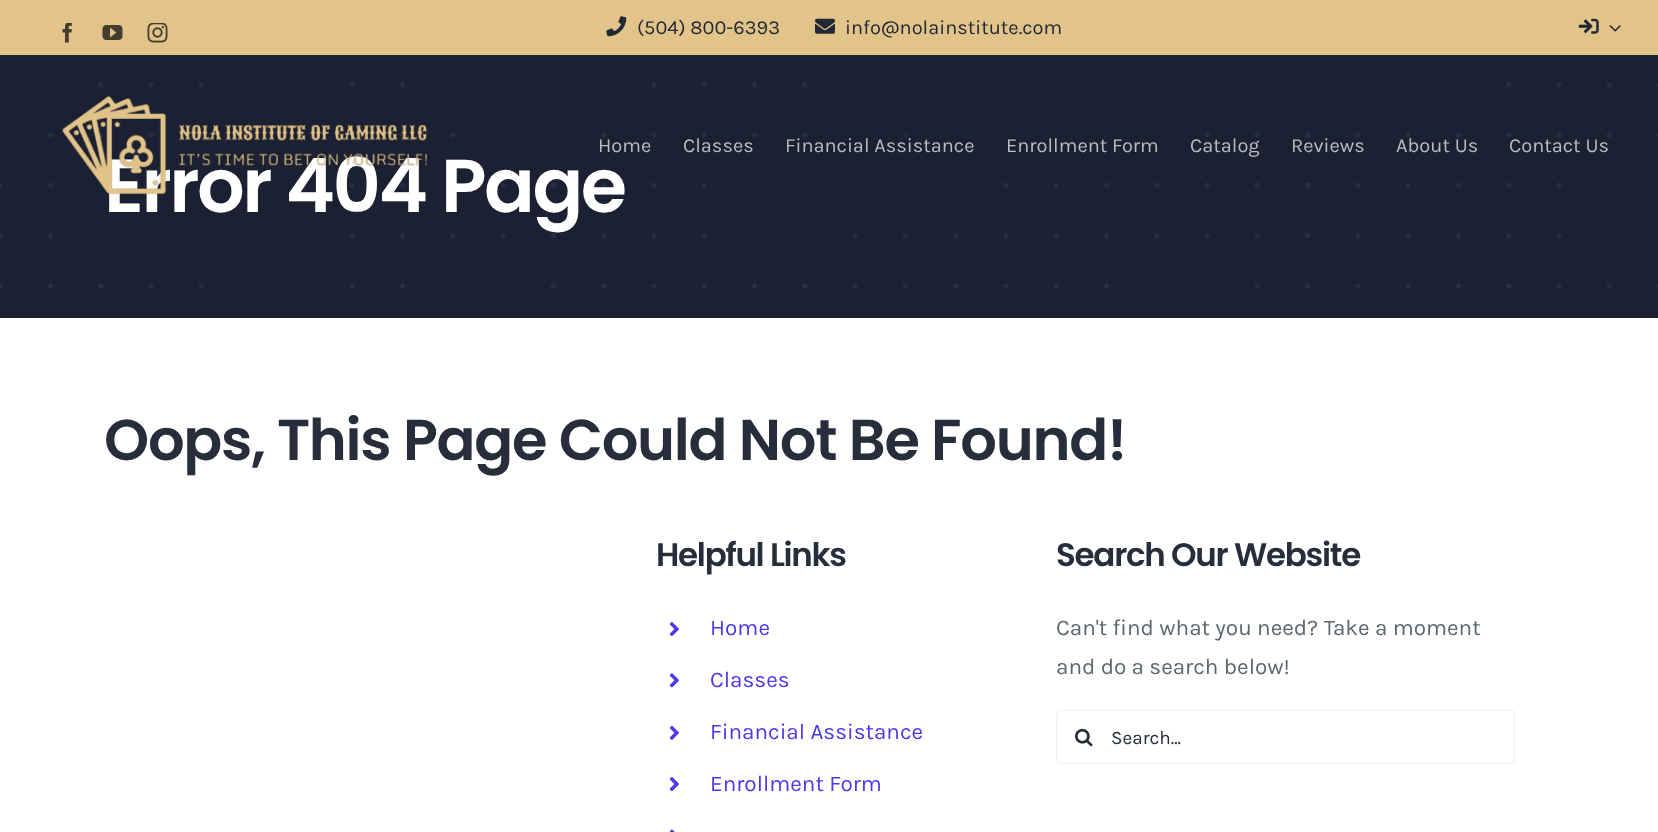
<svg xmlns="http://www.w3.org/2000/svg" xmlns:xlink="http://www.w3.org/1999/xlink" width="1658" height="832" viewBox="0 0 1658 832">
<style>
.cls-1{font:20px Karla;fill:#212934}
.cls-2{font:20px Karla;fill:#bbbcc2}
.cls-3{font:600 75px Poppins;letter-spacing:-2.5px;fill:#ffffff}
.cls-4{font:600 57.5px Poppins;letter-spacing:-1.25px;fill:#272d3a}
.cls-5{font:600 32.5px Poppins;letter-spacing:-1.25px;fill:#272d3a}
.cls-6{font:22.5px Karla;fill:#4d39e9}
.cls-7{font:22.5px Karla;fill:#5c6770}
.cls-8{font:19px Karla;fill:#272d3a}
</style>
<rect width="100%" height="100%" fill="#ffffff"/>
<rect fill="#e2c48a" x="0" y="0" width="1658" height="55"/>
<image xlink:href="image0.png" x="62" y="23" width="10" height="20"/>
<image xlink:href="image1.png" x="102" y="25" width="21" height="15"/>
<image xlink:href="image2.png" x="147" y="23" width="21" height="20"/>
<image xlink:href="image3.png" x="606" y="16" width="21" height="21"/>
<image xlink:href="image4.png" x="815" y="18" width="20" height="16"/>
<image xlink:href="image5.png" x="1578" y="18" width="21" height="16"/>
<image xlink:href="image6.png" x="1609" y="25" width="12" height="7"/>
<rect fill="#1b2032" x="0" y="55" width="1658" height="263"/>
<image xlink:href="image8.png" x="0" y="82" width="1658" height="207"/>
<image xlink:href="image9.png" x="669" y="622" width="10" height="15"/>
<image xlink:href="image10.png" x="669" y="673" width="10" height="15"/>
<image xlink:href="image11.png" x="669" y="725" width="10" height="15"/>
<image xlink:href="image9.png" x="669" y="777" width="10" height="15"/>
<image xlink:href="image12.png" x="669" y="829" width="6" height="3"/>
<rect fill="none" stroke="#ecefef" x="1056.5" y="710.5" width="458" height="53" rx="3.5"/>
<image xlink:href="image13.png" x="1075" y="728" width="18" height="19"/>
<text class="cls-1" x="637" y="34">(504) 800-6393</text>
<text class="cls-1" x="845" y="34">info@nolainstitute.com</text>
<text class="cls-2" x="598" y="152">Home</text>
<text class="cls-2" x="683" y="152">Classes</text>
<text class="cls-2" x="785" y="152">Financial Assistance</text>
<text class="cls-2" x="1006" y="152">Enrollment Form</text>
<text class="cls-2" x="1190" y="152">Catalog</text>
<text class="cls-2" x="1291" y="152">Reviews</text>
<text class="cls-2" x="1396" y="152">About Us</text>
<text class="cls-2" x="1509" y="152">Contact Us</text>
<text class="cls-3" x="104" y="212">Error 404 Page</text>
<image xlink:href="image7.png" x="62" y="96" width="365" height="99"/>
<text class="cls-4" x="104" y="460">Oops, This Page Could Not Be Found!</text>
<text class="cls-5" x="656" y="566">Helpful Links</text>
<text class="cls-6" x="710" y="635">Home</text>
<text class="cls-6" x="710" y="687">Classes</text>
<text class="cls-6" x="710" y="739">Financial Assistance</text>
<text class="cls-6" x="710" y="791">Enrollment Form</text>
<text class="cls-5" x="1056" y="566">Search Our Website</text>
<text class="cls-7"><tspan x="1056" y="635">Can't find what you need? Take a moment</tspan><tspan x="1056" y="674">and do a search below!</tspan></text>
<text class="cls-8" x="1111" y="744">Search...</text>
</svg>
